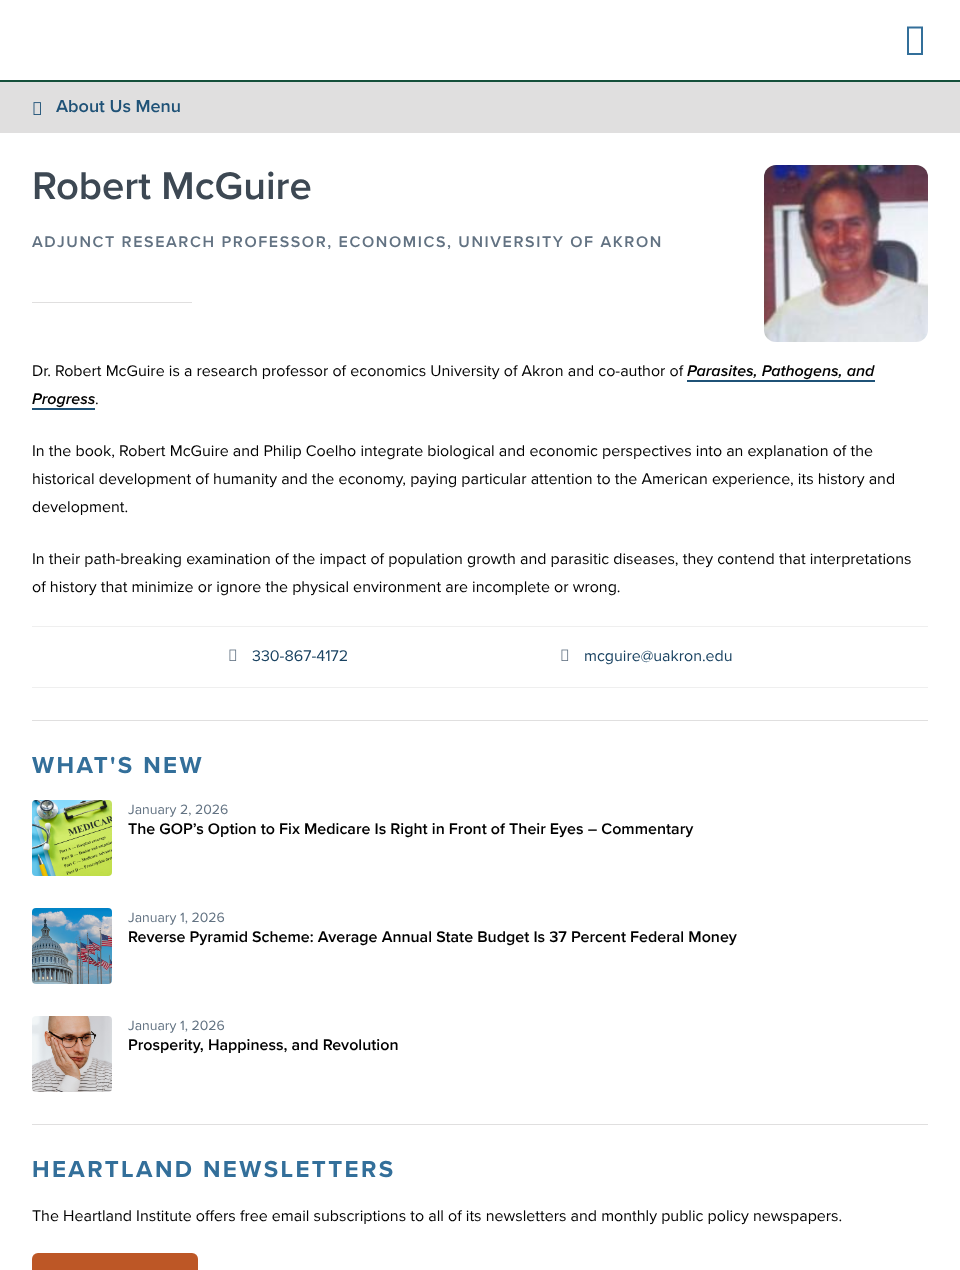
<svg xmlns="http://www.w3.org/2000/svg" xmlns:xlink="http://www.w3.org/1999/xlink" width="960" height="1270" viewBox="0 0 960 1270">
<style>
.cls-1{font:18px 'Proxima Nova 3';fill:#1f5277}
.cls-2{font:40px 'Proxima Nova 3';fill:#3d4853}
.cls-3{font:16px 'Proxima Nova 3';letter-spacing:1.6px;fill:#627282}
.cls-4{font:16px Proxima Nova;fill:#000000}
.cls-5{font:italic 16px Proxima Nova;fill:#000000}
.cls-6{font:16px Proxima Nova;fill:#194261}
.cls-7{font:24px 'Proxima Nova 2';letter-spacing:2.4px;fill:#336f9a}
.cls-8{font:14px Proxima Nova;fill:#627282}
.cls-9{font:16px 'Proxima Nova 3';fill:#000000}
</style>
<rect width="100%" height="100%" fill="#ffffff"/>
<rect fill="#15503b" x="0" y="80" width="960" height="2"/>
<path fill="#336f9a" d="M907 55V26.5H923V55ZM909 53H921V28.5H909Z"/>
<rect fill="#e0dfdf" x="0" y="82" width="960" height="51"/>
<image xlink:href="image0.png" x="33" y="102" width="8" height="13"/>
<image xlink:href="image1.png" x="764" y="165" width="164" height="177"/>
<rect fill="#e0dfdf" x="32" y="302" width="160" height="1"/>
<rect fill="#1f5277" x="687" y="380" width="188" height="2"/>
<rect fill="#1f5277" x="32" y="408" width="63" height="2"/>
<rect fill="#efefef" x="32" y="626" width="896" height="1"/>
<rect fill="#efefef" x="32" y="687" width="896" height="1"/>
<image xlink:href="image2.png" x="229" y="649" width="8" height="12"/>
<image xlink:href="image2.png" x="561" y="649" width="8" height="12"/>
<rect fill="#e0dfdf" x="32" y="720" width="896" height="1"/>
<image xlink:href="image3.png" x="32" y="800" width="80" height="76"/>
<image xlink:href="image4.png" x="32" y="908" width="80" height="76"/>
<image xlink:href="image5.png" x="32" y="1016" width="80" height="76"/>
<rect fill="#e0dfdf" x="32" y="1124" width="896" height="1"/>
<rect fill="#bd5726" x="32" y="1253" width="166" height="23" rx="6"/>
<text class="cls-1" x="56" y="112">About Us Menu</text>
<text class="cls-2" x="32" y="199">Robert McGuire</text>
<text class="cls-3" x="32" y="247">ADJUNCT RESEARCH PROFESSOR, ECONOMICS, UNIVERSITY OF AKRON</text>
<text class="cls-4" x="32" y="376">Dr. Robert McGuire is a research professor of economics University of Akron and co-author of</text>
<text class="cls-5" x="687" y="376">Parasites, Pathogens, and</text>
<text class="cls-5" x="32" y="404">Progress</text>
<text class="cls-4" x="95" y="404">.</text>
<text class="cls-4"><tspan x="32" y="456">In the book, Robert McGuire and Philip Coelho integrate biological and economic perspectives into an explanation of the</tspan><tspan x="32" y="484">historical development of humanity and the economy, paying particular attention to the American experience, its history and</tspan><tspan x="32" y="512">development.</tspan></text>
<text class="cls-4"><tspan x="32" y="564">In their path-breaking examination of the impact of population growth and parasitic diseases, they contend that interpretations</tspan><tspan x="32" y="592">of history that minimize or ignore the physical environment are incomplete or wrong.</tspan></text>
<text class="cls-6" x="252" y="661">330-867-4172</text>
<text class="cls-6" x="584" y="661">mcguire@uakron.edu</text>
<text class="cls-7" x="32" y="773">WHAT'S NEW</text>
<text class="cls-8" x="128" y="814">January 2, 2026</text>
<text class="cls-9" x="128" y="834">The GOP’s Option to Fix Medicare Is Right in Front of Their Eyes – Commentary</text>
<text class="cls-8" x="128" y="922">January 1, 2026</text>
<text class="cls-9" x="128" y="942">Reverse Pyramid Scheme: Average Annual State Budget Is 37 Percent Federal Money</text>
<text class="cls-8" x="128" y="1030">January 1, 2026</text>
<text class="cls-9" x="128" y="1050">Prosperity, Happiness, and Revolution</text>
<text class="cls-7" x="32" y="1177">HEARTLAND NEWSLETTERS</text>
<text class="cls-4" x="32" y="1221">The Heartland Institute offers free email subscriptions to all of its newsletters and monthly public policy newspapers.</text>
</svg>
